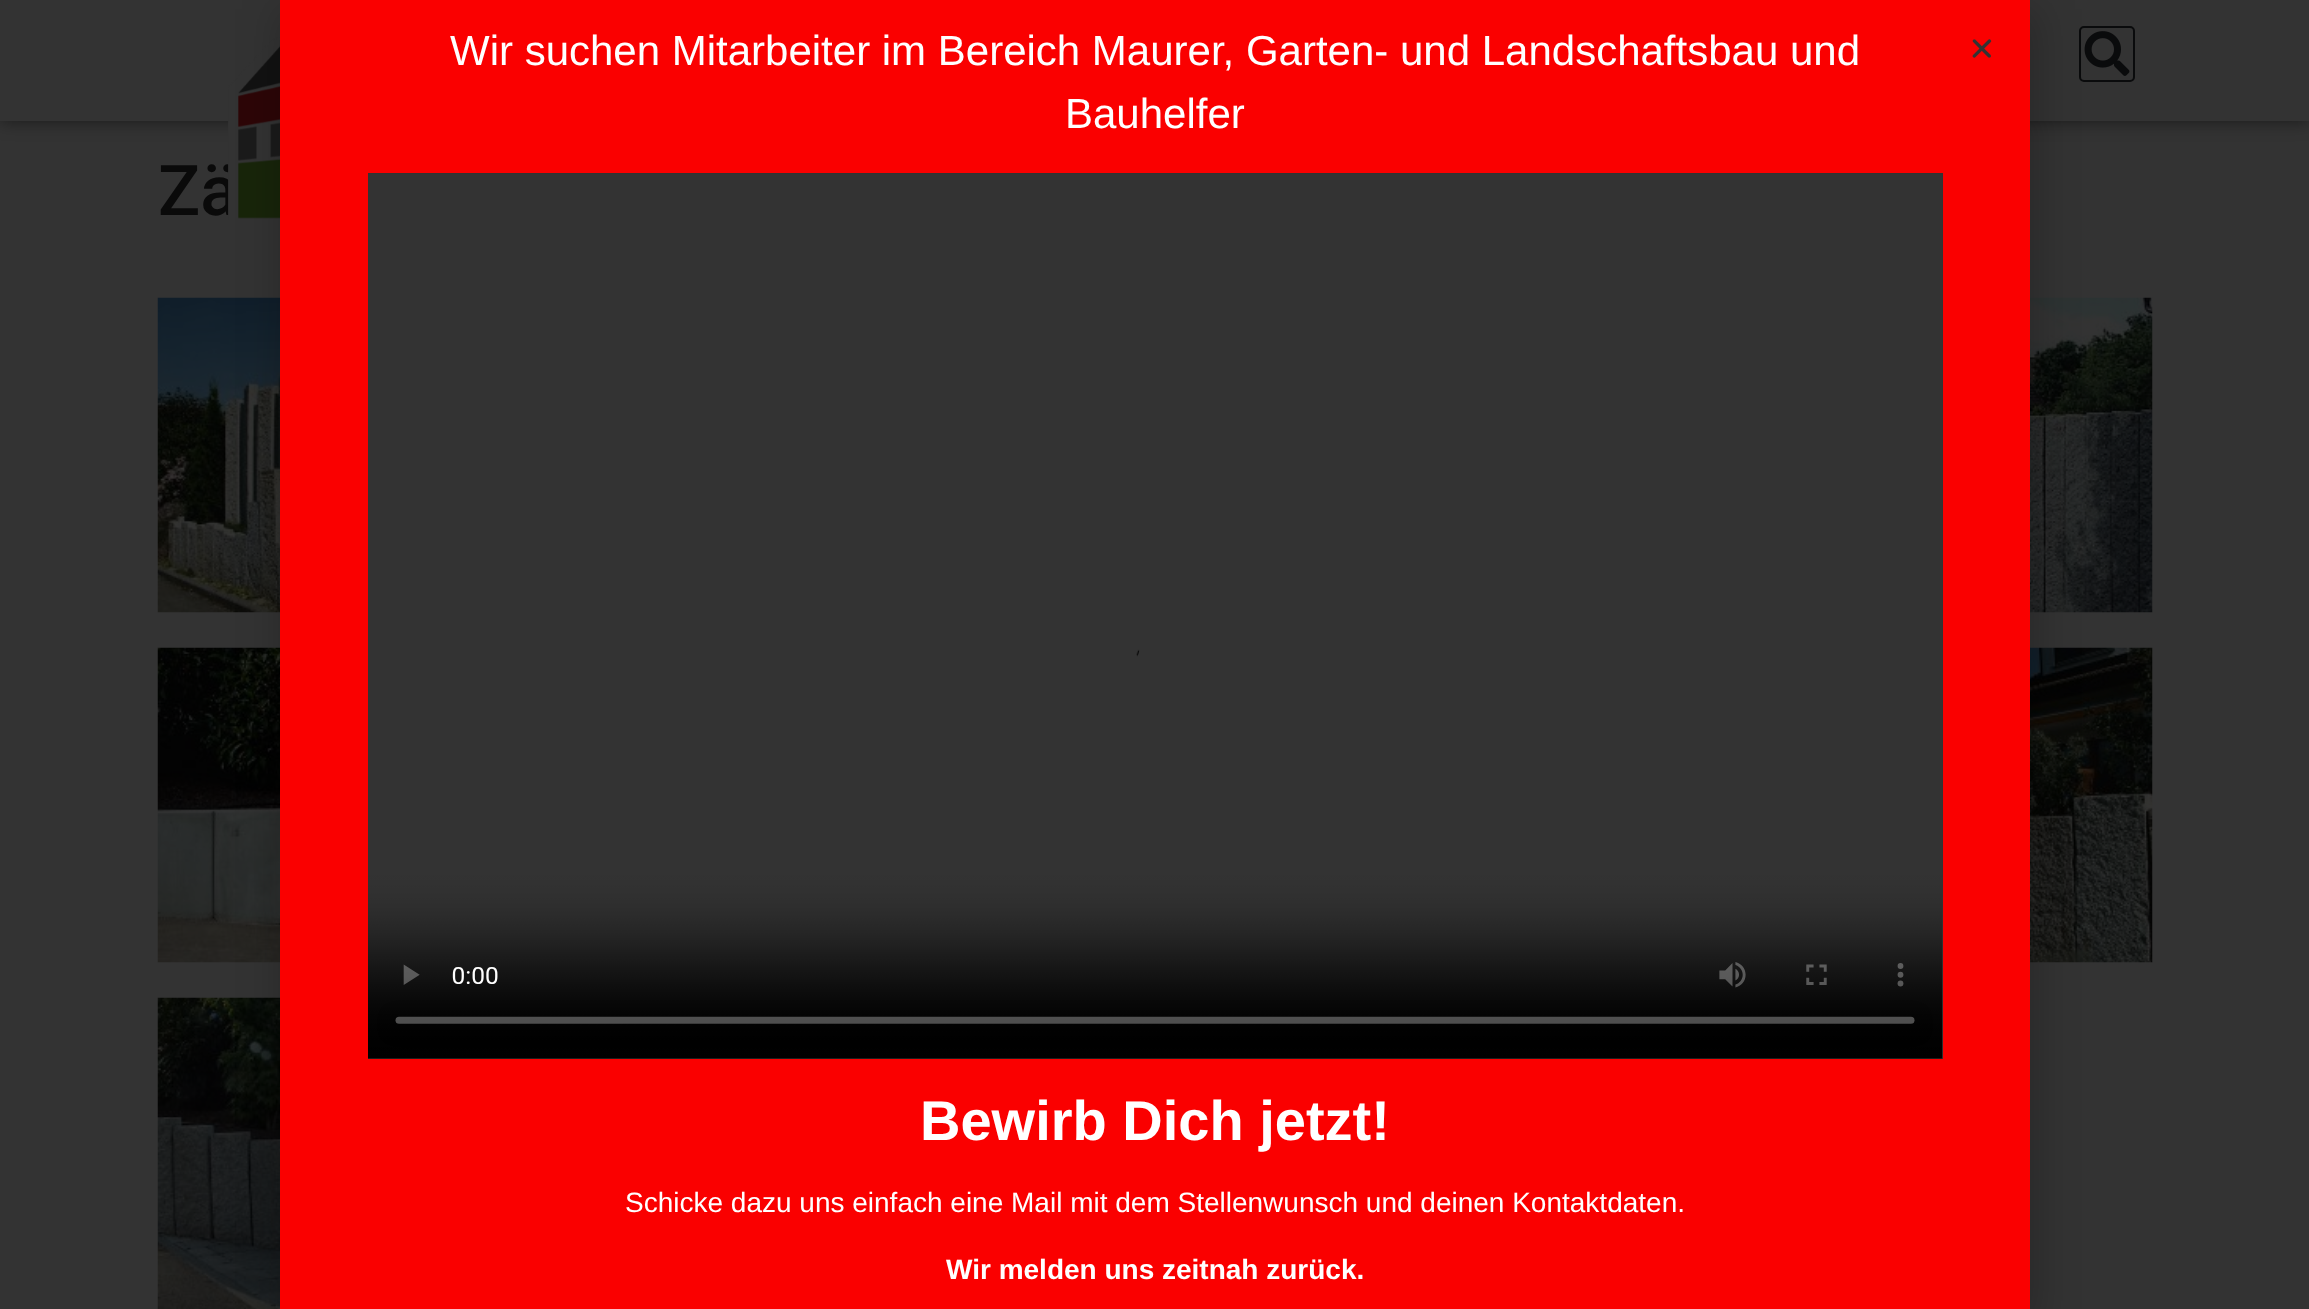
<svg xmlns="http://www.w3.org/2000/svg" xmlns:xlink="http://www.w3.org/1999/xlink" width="2309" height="1309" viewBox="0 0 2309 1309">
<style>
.cls-1{font:500 70px Roboto;fill:#0a0a0a}
.cls-2{font:42px Liberation Sans;fill:#ffffff}
.cls-3{font:bold 56px Liberation Sans;fill:#ffffff}
.cls-4{font:28px Liberation Sans;fill:#ffffff}
.cls-5{font:bold 28px Liberation Sans;fill:#ffffff}
</style>
<defs>
<clipPath id="clip1"><path d="M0 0H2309V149H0ZM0 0H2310V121H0Z" clip-rule="evenodd"/></clipPath>
</defs>
<rect width="100%" height="100%" fill="#333333"/>
<g clip-path="url(#clip1)">
<rect fill="#000000" fill-opacity="0.5" filter="blur(9px)" x="0" y="0" width="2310" height="121"/>
</g>
<rect fill="none" stroke="#0a0b0c" stroke-width="2" x="2080" y="27" width="54" height="54" rx="4"/>
<image xlink:href="image1.png" x="2084" y="31" width="46" height="45"/>
<image xlink:href="image2.png" x="157" y="297" width="123" height="316"/>
<image xlink:href="image3.png" x="2030" y="297" width="123" height="316"/>
<image xlink:href="image4.png" x="157" y="647" width="123" height="316"/>
<image xlink:href="image5.png" x="2030" y="647" width="123" height="316"/>
<image xlink:href="image6.png" x="157" y="997" width="123" height="312"/>
<text class="cls-1" x="158" y="215">Zä</text>
<image xlink:href="image0.png" x="228" y="36" width="52" height="184"/>
<rect fill="#000000" fill-opacity="0.2" filter="blur(20px)" x="278" y="9" width="1761" height="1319"/>
<rect fill="#fa0000" x="280" y="0" width="1750" height="1309"/>
<text class="cls-2" x="450" y="65">Wir suchen Mitarbeiter im Bereich Maurer, Garten- und Landschaftsbau und</text>
<text class="cls-2" x="1065" y="128">Bauhelfer</text>
<image xlink:href="image7.png" x="368" y="173" width="1575" height="886"/>
<text class="cls-3" x="920" y="1140">Bewirb Dich jetzt!</text>
<text class="cls-4" x="625" y="1212">Schicke dazu uns einfach eine Mail mit dem Stellenwunsch und deinen Kontaktdaten.</text>
<text class="cls-5" x="946" y="1279">Wir melden uns zeitnah zurück.</text>
<image xlink:href="image8.png" x="1972" y="39" width="20" height="19"/>
</svg>
